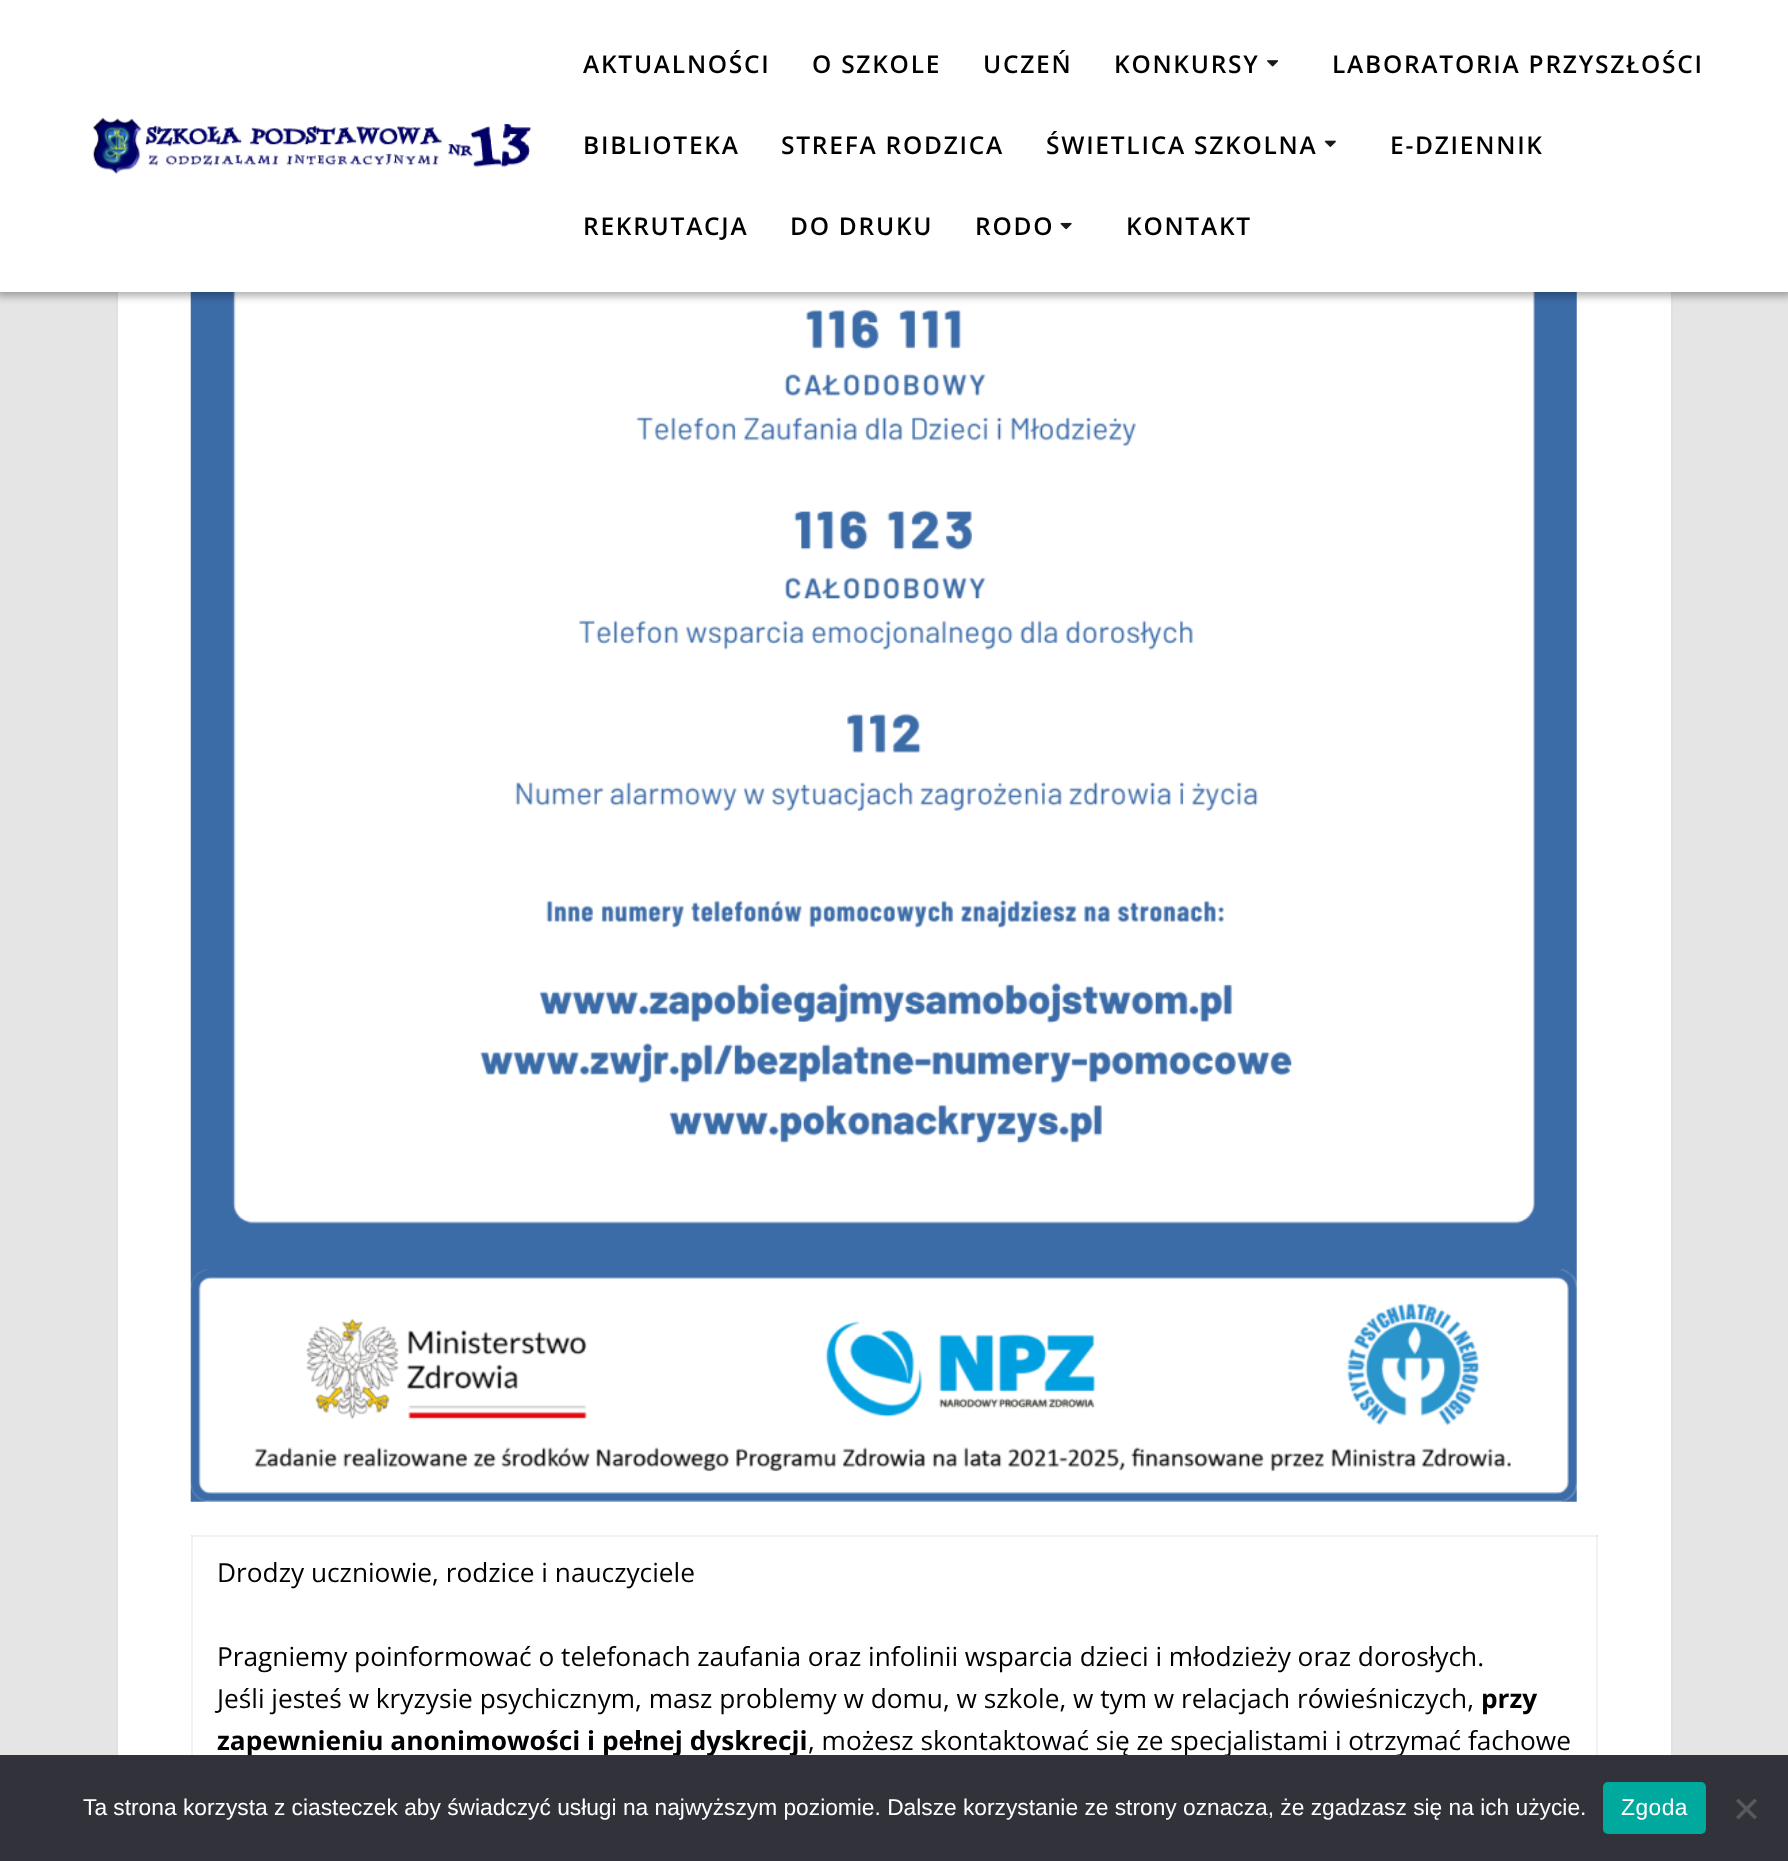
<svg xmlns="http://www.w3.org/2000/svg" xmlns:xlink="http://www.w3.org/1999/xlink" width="1788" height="1861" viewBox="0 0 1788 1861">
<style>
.cls-1{font:600 24.5px Open Sans;letter-spacing:1.75px;fill:#000000}
.cls-2{font:26.25px Open Sans;fill:#000000}
.cls-3{font:bold 26.25px Open Sans;fill:#000000}
.cls-4{font:22.75px Liberation Sans;fill:#ffffff}
.cls-5{font:22.75px Liberation Sans;letter-spacing:0.5px;fill:#ffffff}
</style>
<rect width="100%" height="100%" fill="#e5e5e5"/>
<rect fill="#ffffff" x="118" y="292" width="1553" height="1463"/>
<rect fill="#f2f2f2" x="191" y="1535" width="2" height="220"/>
<rect fill="#f2f2f2" x="1596" y="1535" width="2" height="220"/>
<rect fill="none" stroke="#e0e1e1" stroke-width="2" x="117" y="-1" width="1555" height="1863"/>
<image xlink:href="image4.png" x="190" y="292" width="1387" height="1210"/>
<rect fill="#000000" fill-opacity="0.33" filter="blur(4.5px)" x="-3" y="-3" width="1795" height="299"/>
<rect fill="#ffffff" x="0" y="0" width="1788" height="292"/>
<image xlink:href="image0.png" x="92" y="117" width="440" height="58"/>
<image xlink:href="image1.png" x="1267" y="60" width="12" height="7"/>
<image xlink:href="image2.png" x="1324" y="140" width="12" height="7"/>
<image xlink:href="image3.png" x="1060" y="222" width="12" height="8"/>
<rect fill="#f2f2f2" x="191" y="1535" width="1407" height="2"/>
<rect fill="#e6e6e6" x="191" y="1535" width="2" height="2"/>
<rect fill="#e6e6e6" x="1596" y="1535" width="2" height="2"/>
<text class="cls-1" x="583" y="73">AKTUALNOŚCI</text>
<text class="cls-1" x="812" y="73">O SZKOLE</text>
<text class="cls-1" x="983" y="73">UCZEŃ</text>
<text class="cls-1" x="1114" y="73">KONKURSY</text>
<text class="cls-1" x="1332" y="73">LABORATORIA PRZYSZŁOŚCI</text>
<text class="cls-1" x="583" y="154">BIBLIOTEKA</text>
<text class="cls-1" x="781" y="154">STREFA RODZICA</text>
<text class="cls-1" x="1046" y="154">ŚWIETLICA SZKOLNA</text>
<text class="cls-1" x="1390" y="154">E-DZIENNIK</text>
<text class="cls-1" x="583" y="235">REKRUTACJA</text>
<text class="cls-1" x="790" y="235">DO DRUKU</text>
<text class="cls-1" x="975" y="235">RODO</text>
<text class="cls-1" x="1126" y="235">KONTAKT</text>
<text class="cls-2" x="217" y="1582">Drodzy uczniowie, rodzice i nauczyciele</text>
<text class="cls-2"><tspan x="217" y="1666">Pragniemy poinformować o telefonach zaufania oraz infolinii wsparcia dzieci i młodzieży oraz dorosłych.</tspan><tspan x="217" y="1708">Jeśli jesteś w kryzysie psychicznym, masz problemy w domu, w szkole, w tym w relacjach rówieśniczych,</tspan></text>
<text class="cls-3" x="1481" y="1708">przy</text>
<text class="cls-3" x="217" y="1750">zapewnieniu anonimowości i pełnej dyskrecji</text>
<text class="cls-2" x="808" y="1750">, możesz skontaktować się ze specjalistami i otrzymać fachowe</text>
<rect fill="#32323a" x="0" y="1755" width="1788" height="106"/>
<text class="cls-4" x="83" y="1815">Ta strona korzysta z ciasteczek aby świadczyć usługi na najwyższym poziomie. Dalsze korzystanie ze strony oznacza, że zgadzasz się na ich użycie.</text>
<rect fill="#00a99d" x="1603" y="1782" width="103" height="52" rx="5"/>
<text class="cls-5" x="1621" y="1815">Zgoda</text>
<path fill="#59595d" d="M1754.5 1798.5L1757 1801L1738.5 1819.5L1736 1817Z"/>
<path fill="#59595d" d="M1736 1801L1738.5 1798.5L1757 1817L1754.5 1819.5Z"/>
</svg>
